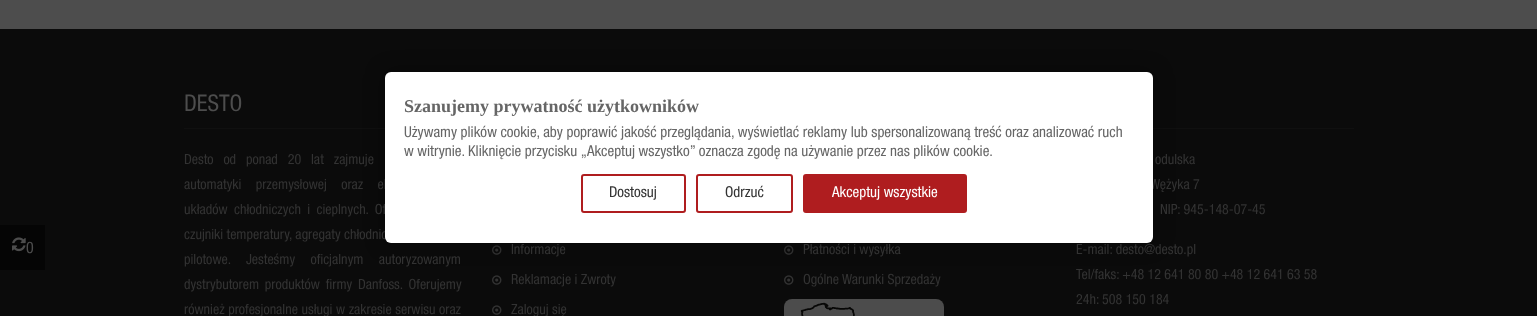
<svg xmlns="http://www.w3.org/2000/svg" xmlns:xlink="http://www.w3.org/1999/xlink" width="1537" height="316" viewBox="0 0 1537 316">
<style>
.cls-1{font:23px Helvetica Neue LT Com;fill:#4d4d4d}
.cls-2{font:14px Helvetica Neue LT Com;fill:#333333}
.cls-3{font:bold 18px Liberation Serif;fill:#666666}
.cls-4{font:15px Helvetica Neue LT Com;fill:#666666}
.cls-5{font:15px Helvetica Neue LT Com;fill:#333333}
.cls-6{font:15px Helvetica Neue LT Com;fill:#ffffff}
.cls-7{font:16px Helvetica Neue LT Com;fill:#4d4d4d}
</style>
<rect width="100%" height="100%" fill="#4d4d4d"/>
<rect fill="#0b0b0b" x="0" y="29" width="1537" height="287"/>
<rect fill="#101010" x="184" y="128" width="201" height="1"/>
<image xlink:href="image0.png" x="492" y="245" width="10" height="10"/>
<image xlink:href="image0.png" x="492" y="275" width="10" height="10"/>
<image xlink:href="image0.png" x="492" y="305" width="10" height="10"/>
<image xlink:href="image0.png" x="784" y="245" width="10" height="10"/>
<image xlink:href="image0.png" x="784" y="275" width="10" height="10"/>
<image xlink:href="image1.png" x="784" y="299" width="160" height="17"/>
<rect fill="#101010" x="1153" y="128" width="201" height="1"/>
<rect fill="#000000" fill-opacity="0.4" filter="blur(10px)" x="385" y="72" width="768" height="171" rx="6"/>
<rect fill="#050505" x="0" y="225" width="45" height="45"/>
<image xlink:href="image2.png" x="12" y="237" width="14" height="15"/>
<text class="cls-1" x="184" y="111">DESTO</text>
<text class="cls-2"><tspan x="184" y="164" word-spacing="6.5">Desto od ponad 20 lat zajmuje</tspan><tspan x="184" y="189" word-spacing="11">automatyki przemysłowej oraz el</tspan><tspan x="184" y="214" word-spacing="3">układów chłodniczych i cieplnych. Of</tspan><tspan x="184" y="239">czujniki temperatury, agregaty chłodnic</tspan><tspan x="184" y="264" word-spacing="12">pilotowe. Jesteśmy oficjalnym autoryzowanym</tspan><tspan x="184" y="289" word-spacing="2.5">dystrybutorem produktów firmy Danfoss. Oferujemy</tspan><tspan x="184" y="314" word-spacing="0.25">również profesjonalne usługi w zakresie serwisu oraz</tspan></text>
<text class="cls-2" x="511" y="254">Informacje</text>
<text class="cls-2" x="511" y="284">Reklamacje i Zwroty</text>
<text class="cls-2" x="511" y="314">Zaloguj się</text>
<text class="cls-2" x="803" y="254">Płatności i wysyłka</text>
<text class="cls-2" x="803" y="284">Ogólne Warunki Sprzedaży</text>
<text class="cls-2" x="1155" y="164">odulska</text>
<text class="cls-2" x="1150" y="189">Wężyka 7</text>
<text class="cls-2" x="1160" y="214">NIP: 945-148-07-45</text>
<text class="cls-2"><tspan x="1076" y="254">E-mail: desto@desto.pl</tspan><tspan x="1076" y="279">Tel/faks: +48 12 641 80 80 +48 12 641 63 58</tspan><tspan x="1076" y="304">24h: 508 150 184</tspan></text>
<rect fill="#ffffff" x="385" y="72" width="768" height="171" rx="6"/>
<text class="cls-3" x="404" y="112">Szanujemy prywatność użytkowników</text>
<text class="cls-4"><tspan x="404" y="137">Używamy plików cookie, aby poprawić jakość przeglądania, wyświetlać reklamy lub spersonalizowaną treść oraz analizować ruch</tspan><tspan x="404" y="156">w witrynie. Kliknięcie przycisku „Akceptuj wszystko” oznacza zgodę na używanie przez nas plików cookie.</tspan></text>
<rect fill="none" stroke="#af1d1f" stroke-width="2" x="582" y="175" width="103" height="37" rx="2"/>
<text class="cls-5" x="609" y="197">Dostosuj</text>
<rect fill="none" stroke="#af1d1f" stroke-width="2" x="697" y="175" width="95" height="37" rx="2"/>
<text class="cls-5" x="725" y="197">Odrzuć</text>
<rect fill="#af1d1f" stroke="#af1d1f" stroke-width="2" x="804" y="175" width="162" height="37" rx="2"/>
<text class="cls-6" x="832" y="197">Akceptuj wszystkie</text>
<text class="cls-7" x="26" y="253">0</text>
</svg>
